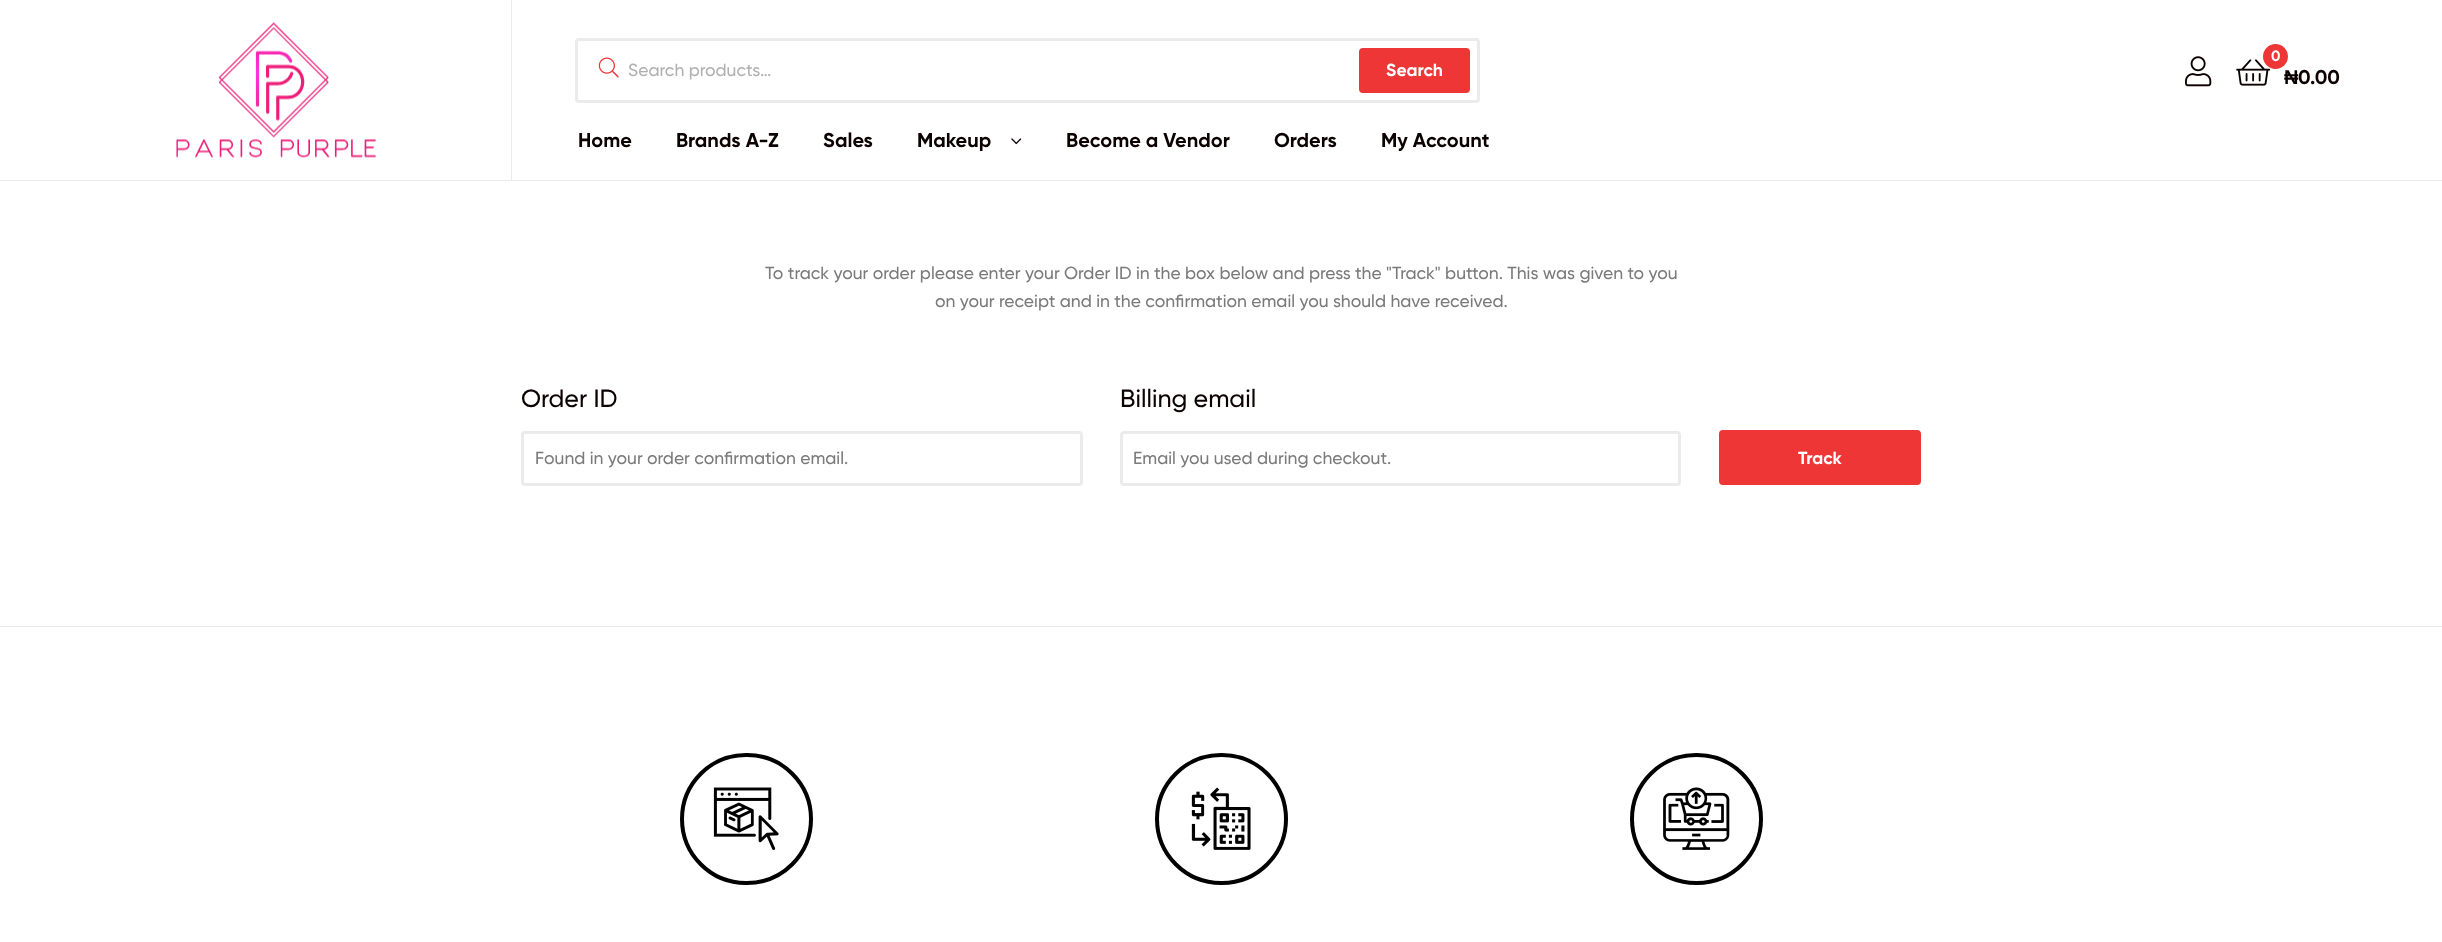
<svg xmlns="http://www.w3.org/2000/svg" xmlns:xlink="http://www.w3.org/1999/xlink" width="2442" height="942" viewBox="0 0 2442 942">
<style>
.cls-1{font:500 17.5px Gilroy;fill:#b0b0b0}
.cls-2{font:bold 17.5px Gilroy;fill:#ffffff}
.cls-3{font:bold 15px Gilroy;fill:#ffffff}
.cls-4{font:bold 20px Liberation Sans;fill:#0b0101}
.cls-5{font:bold 20px Gilroy;fill:#0b0101}
.cls-6{font:500 17.5px Gilroy;fill:#7a7a7a}
.cls-7{font:500 25px Gilroy;fill:#0b0101}
</style>
<rect width="100%" height="100%" fill="#ffffff"/>
<rect fill="#ebebeb" x="0" y="180" width="2442" height="1"/>
<rect fill="#ebebeb" x="511" y="0" width="1" height="180"/>
<image xlink:href="image0.png" x="176" y="22" width="200" height="136"/>
<rect fill="none" stroke="#ebebeb" stroke-width="3" x="576.5" y="39.5" width="902" height="62" rx="2.5"/>
<image xlink:href="image1.png" x="598" y="57" width="21" height="21"/>
<rect fill="#ef3636" stroke="#ef3636" stroke-width="3" x="1360.5" y="49.5" width="108" height="42" rx="2.5"/>
<image xlink:href="image2.png" x="2185" y="56" width="27" height="31"/>
<image xlink:href="image3.png" x="2236" y="59" width="34" height="27"/>
<circle fill="#ef3636" cx="2275.5" cy="56.5" r="12.5"/>
<image xlink:href="image4.png" x="1011" y="138" width="11" height="7"/>
<rect fill="none" stroke="#ebebeb" stroke-width="3" x="522.5" y="432.5" width="559" height="52" rx="2.5"/>
<rect fill="none" stroke="#ebebeb" stroke-width="3" x="1121.5" y="432.5" width="558" height="52" rx="2.5"/>
<rect fill="#ef3636" stroke="#ef3636" stroke-width="3" x="1720.5" y="431.5" width="199" height="52" rx="2.5"/>
<rect fill="#e9e9e9" x="0" y="626" width="2442" height="1"/>
<rect fill="none" stroke="#000000" stroke-width="4" x="682" y="755" width="129" height="128" rx="64"/>
<image xlink:href="image5.png" x="713" y="787" width="66" height="63"/>
<rect fill="none" stroke="#000000" stroke-width="4" x="1157" y="755" width="129" height="128" rx="64"/>
<image xlink:href="image6.png" x="1191" y="787" width="60" height="63"/>
<rect fill="none" stroke="#000000" stroke-width="4" x="1632" y="755" width="129" height="128" rx="64"/>
<image xlink:href="image7.png" x="1663" y="787" width="67" height="63"/>
<text class="cls-1" x="628" y="76">Search products…</text>
<text class="cls-2" x="1386" y="76">Search</text>
<text class="cls-3" x="2271" y="61">0</text>
<text class="cls-4" x="2284" y="84">₦</text>
<text class="cls-5" x="2298" y="84">0.00</text>
<text class="cls-5" x="578" y="147">Home</text>
<text class="cls-5" x="676" y="147">Brands A-Z</text>
<text class="cls-5" x="823" y="147">Sales</text>
<text class="cls-5" x="917" y="147">Makeup</text>
<text class="cls-5" x="1066" y="147">Become a Vendor</text>
<text class="cls-5" x="1274" y="147">Orders</text>
<text class="cls-5" x="1381" y="147">My Account</text>
<text class="cls-6" x="765" y="279">To track your order please enter your Order ID in the box below and press the "Track" button. This was given to you</text>
<text class="cls-6" x="935" y="307">on your receipt and in the confirmation email you should have received.</text>
<text class="cls-7" x="521" y="407">Order ID</text>
<text class="cls-6" x="535" y="464">Found in your order confirmation email.</text>
<text class="cls-7" x="1120" y="407">Billing email</text>
<text class="cls-6" x="1133" y="464">Email you used during checkout.</text>
<text class="cls-2" x="1798" y="464">Track</text>
</svg>
